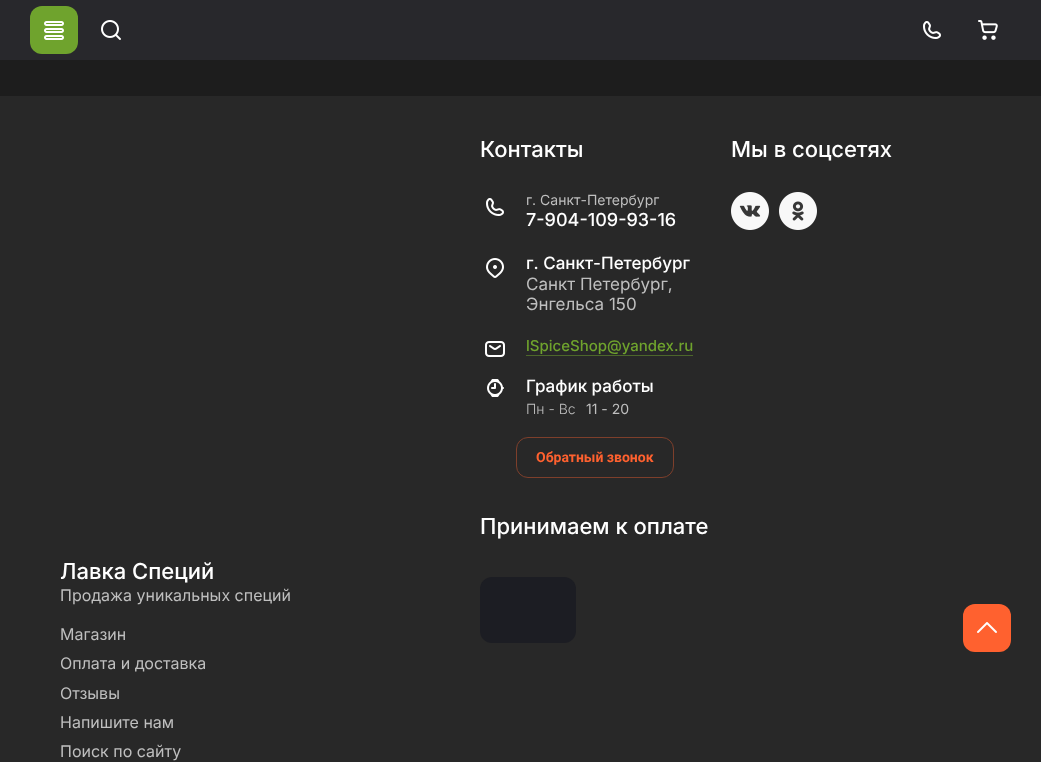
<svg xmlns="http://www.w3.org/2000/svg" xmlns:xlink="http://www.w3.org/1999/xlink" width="1041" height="762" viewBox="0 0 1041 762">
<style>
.cls-1{font:500 22px Inter;fill:#ffffff}
.cls-2{font:14px Inter;fill:#bfbfbf}
.cls-3{font:500 18px Inter;fill:#ffffff}
.cls-4{font:500 17px Inter;fill:#ffffff}
.cls-5{font:17px Inter;fill:#bfbfbf}
.cls-6{font:500 15px Inter;fill:#6fa32d}
.cls-7{font:300 14px Inter;fill:#bfbfbf}
.cls-8{font:bold 14px Roboto;fill:#ff612f}
.cls-9{font:16px Inter;fill:#bfbfbf}
</style>
<rect width="100%" height="100%" fill="#1d1d1d"/>
<rect fill="#28282c" x="0" y="0" width="1041" height="60"/>
<rect fill="#6fa32d" x="30" y="6" width="48" height="48" rx="12"/>
<image xlink:href="image0.png" x="44" y="21" width="20" height="19"/>
<image xlink:href="image1.png" x="101" y="20" width="20" height="20"/>
<image xlink:href="image2.png" x="923" y="21" width="18" height="18"/>
<image xlink:href="image3.png" x="978" y="20" width="20" height="20"/>
<rect fill="#282828" x="0" y="96" width="1041" height="666"/>
<image xlink:href="image4.png" x="486" y="198" width="18" height="18"/>
<image xlink:href="image5.png" x="486" y="258" width="18" height="20"/>
<image xlink:href="image6.png" x="485" y="341" width="20" height="16"/>
<rect fill="#4c662b" x="526" y="355" width="167" height="1"/>
<image xlink:href="image7.png" x="487" y="379" width="17" height="18"/>
<rect fill="none" stroke="#7e3f2b" x="516.5" y="437.5" width="157" height="40" rx="11.5"/>
<image xlink:href="image8.png" x="731" y="192" width="38" height="38"/>
<image xlink:href="image9.png" x="779" y="192" width="38" height="38"/>
<rect fill="#1c1d23" x="480" y="577" width="96" height="66" rx="12"/>
<rect fill="#ff612f" x="963" y="604" width="48" height="48" rx="12"/>
<image xlink:href="image10.png" x="977" y="622" width="20" height="11"/>
<text class="cls-1" x="480" y="157">Контакты</text>
<text class="cls-2" x="526" y="205">г. Санкт-Петербург</text>
<text class="cls-3" x="526" y="226">7-904-109-93-16</text>
<text class="cls-4" x="526" y="269">г. Санкт-Петербург</text>
<text class="cls-5"><tspan x="526" y="290">Санкт Петербург,</tspan><tspan x="526" y="310">Энгельса 150</tspan></text>
<text class="cls-6" x="526" y="351">lSpiceShop@yandex.ru</text>
<text class="cls-4" x="526" y="392">График работы</text>
<text class="cls-7" x="526" y="414">Пн - Вс</text>
<text class="cls-2" x="586" y="414">11 - 20</text>
<text class="cls-8" x="536" y="462">Обратный звонок</text>
<text class="cls-1" x="731" y="157">Мы в соцсетях</text>
<text class="cls-1" x="480" y="534">Принимаем к оплате</text>
<text class="cls-1" x="60" y="579">Лавка Специй</text>
<text class="cls-9" x="60" y="601">Продажа уникальных специй</text>
<text class="cls-9"><tspan x="60" y="640">Магазин</tspan><tspan x="60" y="669">Оплата и доставка</tspan><tspan x="60" y="699">Отзывы</tspan><tspan x="60" y="728">Напишите нам</tspan><tspan x="60" y="757">Поиск по сайту</tspan></text>
</svg>
